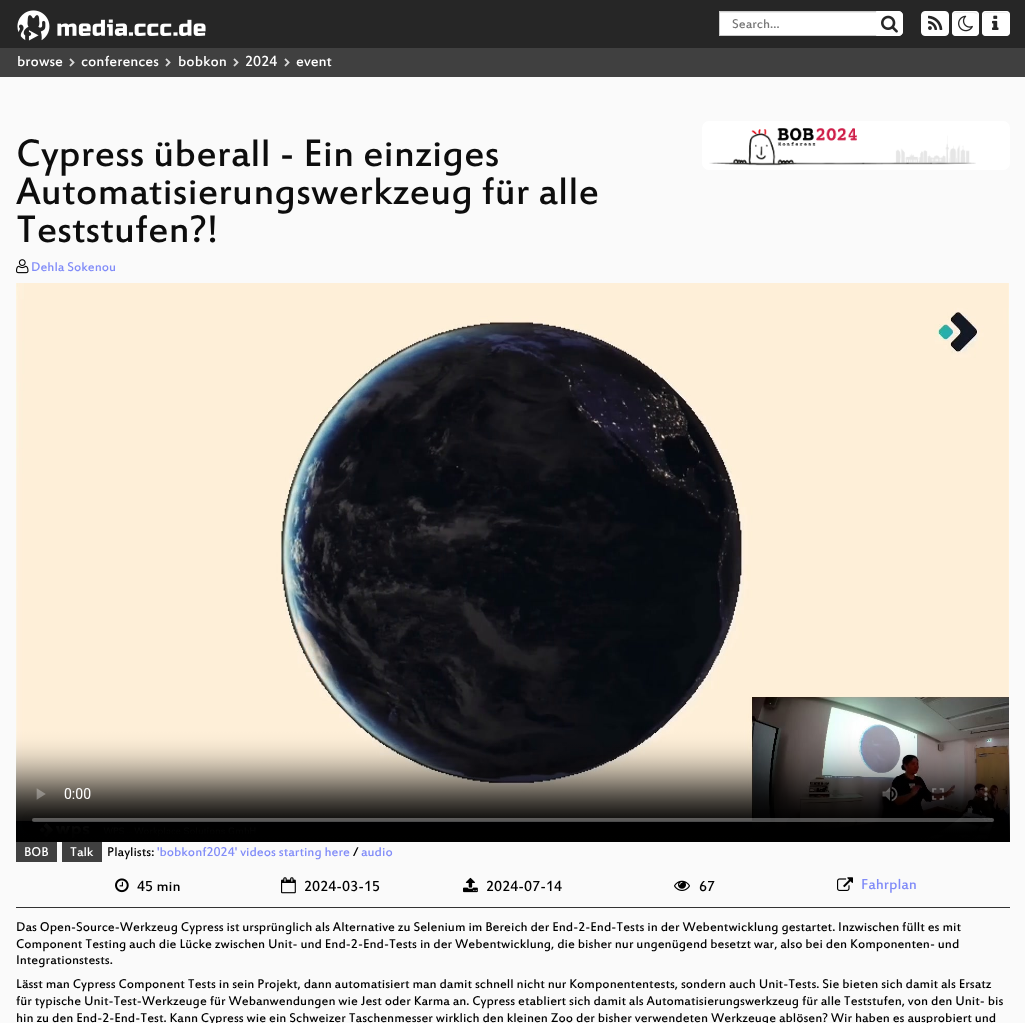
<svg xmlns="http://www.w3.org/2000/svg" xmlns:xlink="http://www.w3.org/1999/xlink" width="1025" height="1023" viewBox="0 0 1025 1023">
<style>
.cls-1{font:14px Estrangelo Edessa;fill:#777777}
.cls-2{font:16px Estrangelo Edessa;fill:#ffffff}
.cls-3{font:42px Estrangelo Edessa;fill:#0d0d0d}
.cls-4{font:14px Estrangelo Edessa;fill:#818cf8}
.cls-5{font:14px Estrangelo Edessa;fill:#ffffff}
.cls-6{font:14px Estrangelo Edessa;fill:#000000}
.cls-7{font:16px Estrangelo Edessa;fill:#000000}
.cls-8{font:16px Estrangelo Edessa;fill:#818cf8}
</style>
<rect width="100%" height="100%" fill="#fafafa"/>
<rect fill="#262626" x="0" y="0" width="1025" height="48"/>
<image xlink:href="image0.png" x="17" y="10" width="189" height="31"/>
<rect fill="#ffffff" x="720" y="13" width="156" height="22"/>
<rect fill="#ececec" x="720" y="12" width="156" height="1"/>
<rect fill="none" stroke="#cccccc" x="719.5" y="11.5" width="157" height="24"/>
<path fill="#ffffff" stroke="#ffffff" d="M876.5 11.5H899C901 11.5 902.5 13 902.5 15V32C902.5 34 901 35.5 899 35.5H876.5Z"/>
<image xlink:href="image1.png" x="881" y="15" width="17" height="18"/>
<rect fill="#ffffff" stroke="#ffffff" x="921.5" y="11.5" width="27" height="24" rx="3.5"/>
<image xlink:href="image2.png" x="928" y="15" width="15" height="15"/>
<rect fill="#ffffff" x="952" y="11" width="27" height="25" rx="4"/>
<path fill="#ececec" d="M956 13H972C976 13 977.5 14 978 15.5C978 11.5 975 12 972 12H959C956.5 12 953 11.5 953 15.5C953.5 14 954.5 13 956 13Z"/>
<rect fill="none" stroke="#ffffff" x="952.5" y="11.5" width="26" height="24" rx="3.5"/>
<image xlink:href="image3.png" x="958" y="15" width="15" height="17"/>
<rect fill="#ffffff" x="982" y="11" width="28" height="25" rx="4"/>
<path fill="#ececec" fill-rule="evenodd" d="M986 13H1003C1007.5 13 1009 13.5 1009 16V15C1009 13.5 1007.5 12 1006 12H986C984.5 12 983 13.5 983 15V19C983 17 983 13 986 13ZM983 33V30Z"/>
<rect fill="none" stroke="#ffffff" x="982.5" y="11.5" width="27" height="24" rx="3.5"/>
<image xlink:href="image4.png" x="992" y="15" width="7" height="15"/>
<rect fill="#404040" x="0" y="48" width="1025" height="29"/>
<image xlink:href="image5.png" x="69" y="58" width="6" height="9"/>
<image xlink:href="image5.png" x="165" y="58" width="6" height="9"/>
<image xlink:href="image5.png" x="233" y="58" width="6" height="9"/>
<image xlink:href="image5.png" x="284" y="58" width="6" height="9"/>
<rect fill="#ffffff" x="702" y="121" width="308" height="49" rx="7"/>
<image xlink:href="image6.png" x="709" y="127" width="267" height="39"/>
<image xlink:href="image7.png" x="16" y="259" width="13" height="15"/>
<image xlink:href="image8.png" x="16" y="283" width="994" height="559"/>
<rect fill="#404040" x="16" y="842" width="41" height="20"/>
<rect fill="#404040" x="62" y="842" width="40" height="20"/>
<rect fill="#323232" x="16" y="907" width="994" height="1"/>
<image xlink:href="image9.png" x="115" y="878" width="14" height="15"/>
<image xlink:href="image10.png" x="281" y="877" width="15" height="17"/>
<image xlink:href="image11.png" x="463" y="877" width="15" height="16"/>
<image xlink:href="image12.png" x="674" y="880" width="16" height="11"/>
<image xlink:href="image13.png" x="837" y="877" width="16" height="14"/>
<text class="cls-1" x="732" y="28">Search…</text>
<text class="cls-2" x="17" y="66">browse</text>
<text class="cls-2" x="81" y="66">conferences</text>
<text class="cls-2" x="178" y="66">bobkon</text>
<text class="cls-2" x="245" y="66">2024</text>
<text class="cls-2" x="296" y="66">event</text>
<text class="cls-3"><tspan x="16" y="166">Cypress überall - Ein einziges</tspan><tspan x="16" y="204">Automatisierungswerkzeug für alle</tspan><tspan x="16" y="242">Teststufen?!</tspan></text>
<text class="cls-4" x="31" y="271">Dehla Sokenou</text>
<text class="cls-5" x="24" y="856">BOB</text>
<text class="cls-5" x="70" y="856">Talk</text>
<text class="cls-6" x="107" y="856">Playlists:</text>
<text class="cls-4" x="157" y="856">'bobkonf2024' videos starting here</text>
<text class="cls-6" x="353" y="856">/</text>
<text class="cls-4" x="361" y="856">audio</text>
<text class="cls-7" x="137" y="891">45 min</text>
<text class="cls-7" x="304" y="891">2024-03-15</text>
<text class="cls-7" x="486" y="891">2024-07-14</text>
<text class="cls-7" x="699" y="891">67</text>
<text class="cls-8" x="861" y="889">Fahrplan</text>
<text class="cls-6"><tspan x="16" y="931">Das Open-Source-Werkzeug Cypress ist ursprünglich als Alternative zu Selenium im Bereich der End-2-End-Tests in der Webentwicklung gestartet. Inzwischen füllt es mit</tspan><tspan x="16" y="948">Component Testing auch die Lücke zwischen Unit- und End-2-End-Tests in der Webentwicklung, die bisher nur ungenügend besetzt war, also bei den Komponenten- und</tspan><tspan x="16" y="964">Integrationstests.</tspan><tspan x="16" y="988">Lässt man Cypress Component Tests in sein Projekt, dann automatisiert man damit schnell nicht nur Komponententests, sondern auch Unit-Tests. Sie bieten sich damit als Ersatz</tspan><tspan x="16" y="1005">für typische Unit-Test-Werkzeuge für Webanwendungen wie Jest oder Karma an. Cypress etabliert sich damit als Automatisierungswerkzeug für alle Teststufen, von den Unit- bis</tspan><tspan x="16" y="1022">hin zu den End-2-End-Test. Kann Cypress wie ein Schweizer Taschenmesser wirklich den kleinen Zoo der bisher verwendeten Werkzeuge ablösen? Wir haben es ausprobiert und</tspan></text>
</svg>
